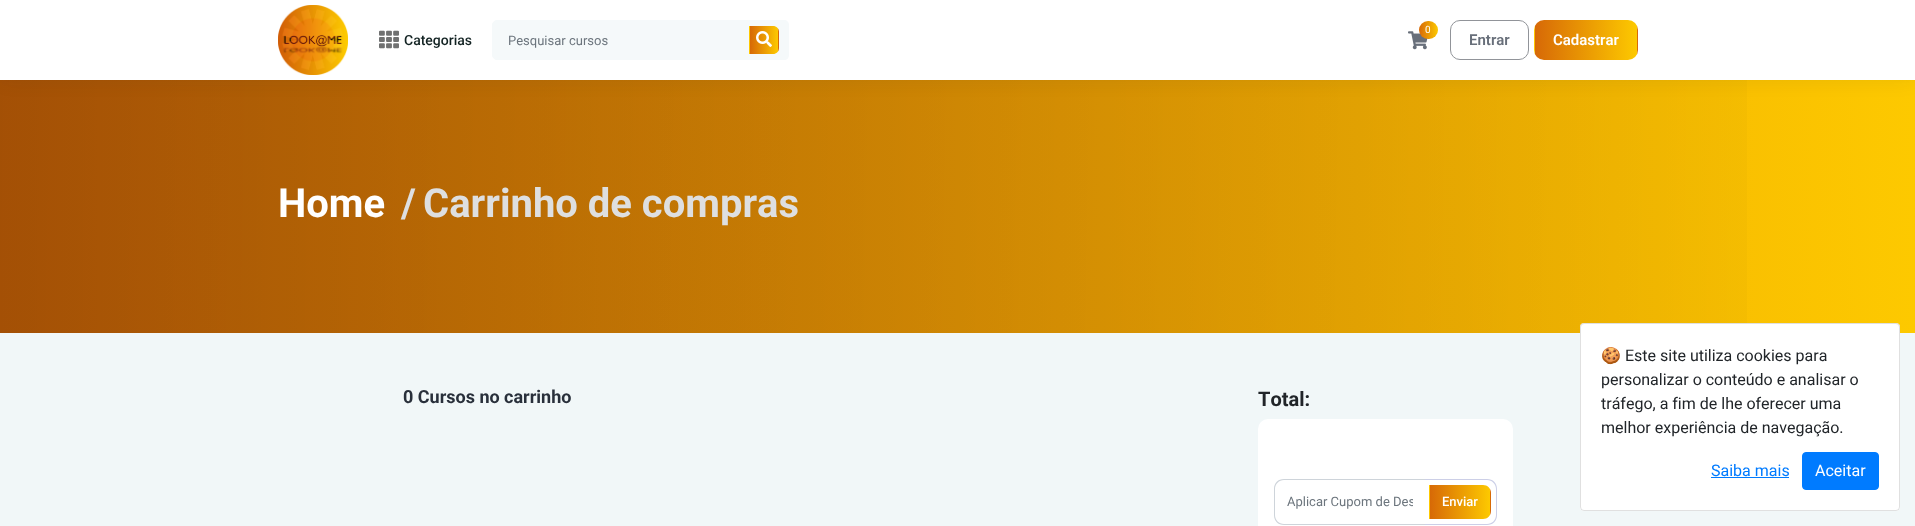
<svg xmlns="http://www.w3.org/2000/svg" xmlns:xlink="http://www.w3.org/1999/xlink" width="1915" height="526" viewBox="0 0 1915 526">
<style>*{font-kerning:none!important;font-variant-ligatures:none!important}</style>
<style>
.cls-1{font:10px Roboto;fill:#ffffff}
.cls-2{font:500 14px Roboto;fill:#122222}
.cls-3{font:13px Roboto;fill:#6c757d}
.cls-4{font:600 15px Roboto;fill:#686f7a}
.cls-5{font:600 15px Roboto;fill:#ffffff}
.cls-6{font:bold 40px Roboto;fill:#ffffff}
.cls-7{font:bold 40px Roboto;fill:#dedfe0}
.cls-8{font:bold 18px Roboto;fill:#29303b}
.cls-9{font:bold 20px Roboto;fill:#212529}
.cls-10{font:500 13px Roboto;fill:#ffffff}
.cls-11{font:16px Noto Color Emoji;fill:#212529}
.cls-12{font:16px Roboto;fill:#212529}
.cls-13{font:16px Roboto;fill:#007bff}
.cls-14{font:16px Roboto;fill:#ffffff}
</style>
<defs>
<linearGradient id="g1" gradientUnits="userSpaceOnUse" x1="0" y1="207" x2="1915" y2="206"><stop offset="0" stop-color="#d76907"/><stop offset="1" stop-color="#fdc900"/></linearGradient>
<linearGradient id="g2" gradientUnits="userSpaceOnUse" x1="-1.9" y1="190" x2="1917" y2="223"><stop offset="0" stop-color="#000000" stop-opacity="0.24"/><stop offset="1" stop-color="#000000" stop-opacity="0"/></linearGradient>
<linearGradient id="g3" gradientUnits="userSpaceOnUse" x1="1419" y1="30" x2="1438" y2="30"><stop offset="0" stop-color="#d76907"/><stop offset="1" stop-color="#fdc900"/></linearGradient>
<linearGradient id="g4" gradientUnits="userSpaceOnUse" x1="722" y1="40" x2="750" y2="40"><stop offset="0" stop-color="#d76907"/><stop offset="1" stop-color="#fdc900"/></linearGradient>
<clipPath id="clip1"><path d="M749 26H773C776.5 26 779 28.5 779 32V48C779 51.5 776.5 54 773 54H749Z"/></clipPath>
<linearGradient id="g5" gradientUnits="userSpaceOnUse" x1="750" y1="40" x2="778" y2="40"><stop offset="0" stop-color="#d76907"/><stop offset="1" stop-color="#fdc900"/></linearGradient>
<linearGradient id="g6" gradientUnits="userSpaceOnUse" x1="778" y1="40" x2="806" y2="40"><stop offset="0" stop-color="#d76907"/><stop offset="1" stop-color="#fdc900"/></linearGradient>
<clipPath id="clip2"><rect x="1534" y="20" width="104" height="40" rx="10"/></clipPath>
<linearGradient id="g7" gradientUnits="userSpaceOnUse" x1="1433" y1="40" x2="1535" y2="40"><stop offset="0" stop-color="#d76907"/><stop offset="1" stop-color="#fdc900"/></linearGradient>
<linearGradient id="g8" gradientUnits="userSpaceOnUse" x1="1535" y1="40" x2="1637" y2="40"><stop offset="0" stop-color="#d76907"/><stop offset="1" stop-color="#fdc900"/></linearGradient>
<linearGradient id="g9" gradientUnits="userSpaceOnUse" x1="1637" y1="40" x2="1739" y2="40"><stop offset="0" stop-color="#d76907"/><stop offset="1" stop-color="#fdc900"/></linearGradient>
<linearGradient id="g10" gradientUnits="userSpaceOnUse" x1="1370" y1="502" x2="1430" y2="502"><stop offset="0" stop-color="#d76907"/><stop offset="1" stop-color="#fdc900"/></linearGradient>
<clipPath id="clip3"><path d="M1429 485H1483C1487.5 485 1491 488.5 1491 493V511C1491 515.5 1487.5 519 1483 519H1429Z"/></clipPath>
<linearGradient id="g11" gradientUnits="userSpaceOnUse" x1="1430" y1="502" x2="1490" y2="502"><stop offset="0" stop-color="#d76907"/><stop offset="1" stop-color="#fdc900"/></linearGradient>
<linearGradient id="g12" gradientUnits="userSpaceOnUse" x1="1490" y1="502" x2="1550" y2="502"><stop offset="0" stop-color="#d76907"/><stop offset="1" stop-color="#fdc900"/></linearGradient>
<clipPath id="clip4"><rect x="1287" y="494" width="126" height="15"/></clipPath>
</defs>
<rect width="100%" height="100%" fill="#f1f7f8"/>
<rect fill="url(#g1)" x="0" y="80" width="1915" height="253"/>
<rect fill="url(#g2)" x="0" y="80" width="1747" height="253"/>
<rect fill="#14171c" fill-opacity="0.1" filter="blur(10px)" x="2" y="2" width="1911" height="76"/>
<rect fill="#ffffff" x="0" y="0" width="1915" height="80"/>
<image xlink:href="image0.png" x="278" y="5" width="70" height="70"/>
<image xlink:href="image1.png" x="1408" y="31" width="20" height="19"/>
<rect fill="url(#g3)" x="1419" y="21" width="19" height="18" rx="9"/>
<image xlink:href="image2.png" x="379" y="30" width="20" height="19"/>
<path fill="#f5f9fa" d="M739 20H784C787 20 789 22 789 25V55C789 58 787 60 784 60H739Z"/>
<path fill="#f5f9fa" stroke="#f5f9fa" d="M497 20.5H739.5V59.5H497C494.5 59.5 492.5 57.5 492.5 55V25C492.5 22.5 494.5 20.5 497 20.5Z"/>
<rect fill="url(#g4)" x="749" y="26" width="1" height="28"/>
<g clip-path="url(#clip1)">
<rect fill="url(#g5)" x="750" y="26" width="28" height="28"/>
<rect fill="url(#g6)" x="778" y="26" width="1" height="28"/>
</g>
<image xlink:href="image3.png" x="756" y="31" width="16" height="16"/>
<rect fill="none" stroke="#919499" x="1450.5" y="20.5" width="78" height="39" rx="9.5"/>
<g clip-path="url(#clip2)">
<rect fill="url(#g7)" x="1534" y="20" width="1" height="40"/>
<rect fill="url(#g8)" x="1535" y="20" width="102" height="40"/>
<rect fill="url(#g9)" x="1637" y="20" width="1" height="40"/>
</g>
<rect fill="#ffffff" x="1258" y="419" width="255" height="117" rx="10"/>
<path fill="#cccfe7" fill-rule="evenodd" d="M1424 479H1487C1493 479 1497 483 1497 489V515C1497 521 1493 525 1487 525H1424ZM1424 480H1487C1492 480 1496 484 1496 489V515C1496 520 1492 524 1487 524H1424Z"/>
<path fill="#ced4da" fill-rule="evenodd" d="M1284 479H1425V525H1284C1278 525 1274 521 1274 515V489C1274 483 1278 479 1284 479ZM1284 480H1425V524H1284C1279 524 1275 520 1275 515V489C1275 484 1279 480 1284 480Z"/>
<rect fill="url(#g10)" x="1429" y="485" width="1" height="34"/>
<g clip-path="url(#clip3)">
<rect fill="url(#g11)" x="1430" y="485" width="60" height="34"/>
<rect fill="url(#g12)" x="1490" y="485" width="1" height="34"/>
</g>
<rect fill="#ffffff" x="1580" y="323" width="320" height="188" rx="4"/>
<rect fill="none" stroke="#000000" stroke-opacity="0.12" x="1580.5" y="323.5" width="319" height="187" rx="3.5"/>
<rect fill="#007bff" x="1711" y="477" width="78" height="1"/>
<rect fill="#007bff" stroke="#007bff" x="1802.5" y="452.5" width="76" height="37" rx="3.5"/>
<text class="cls-1" x="1425" y="33">0</text>
<text class="cls-2" x="404" y="45">Categorias</text>
<text class="cls-3" x="508" y="45">Pesquisar cursos</text>
<text class="cls-4" x="1469" y="45">Entrar</text>
<text class="cls-5" x="1553" y="45">Cadastrar</text>
<text class="cls-6" x="278" y="217">Home</text>
<text class="cls-7" x="401" y="217">/</text>
<text class="cls-7" x="423" y="217">Carrinho de compras</text>
<text class="cls-8" x="403" y="403">0 Cursos no carrinho</text>
<text class="cls-9" x="1258" y="406">Total:</text>
<g clip-path="url(#clip4)">
<text class="cls-3" x="1287" y="506">Aplicar Cupom de Des</text>
</g>
<text class="cls-10" x="1442" y="506">Enviar</text>
<text class="cls-11" x="1601" y="361">🍪</text>
<text class="cls-12" x="1625" y="361">Este site utiliza cookies para</text>
<text class="cls-12"><tspan x="1601" y="385">personalizar o conteúdo e analisar o</tspan><tspan x="1601" y="409">tráfego, a fim de lhe oferecer uma</tspan><tspan x="1601" y="433">melhor experiência de navegação.</tspan></text>
<text class="cls-13" x="1711" y="476">Saiba mais</text>
<text class="cls-14" x="1815" y="476">Aceitar</text>
</svg>
